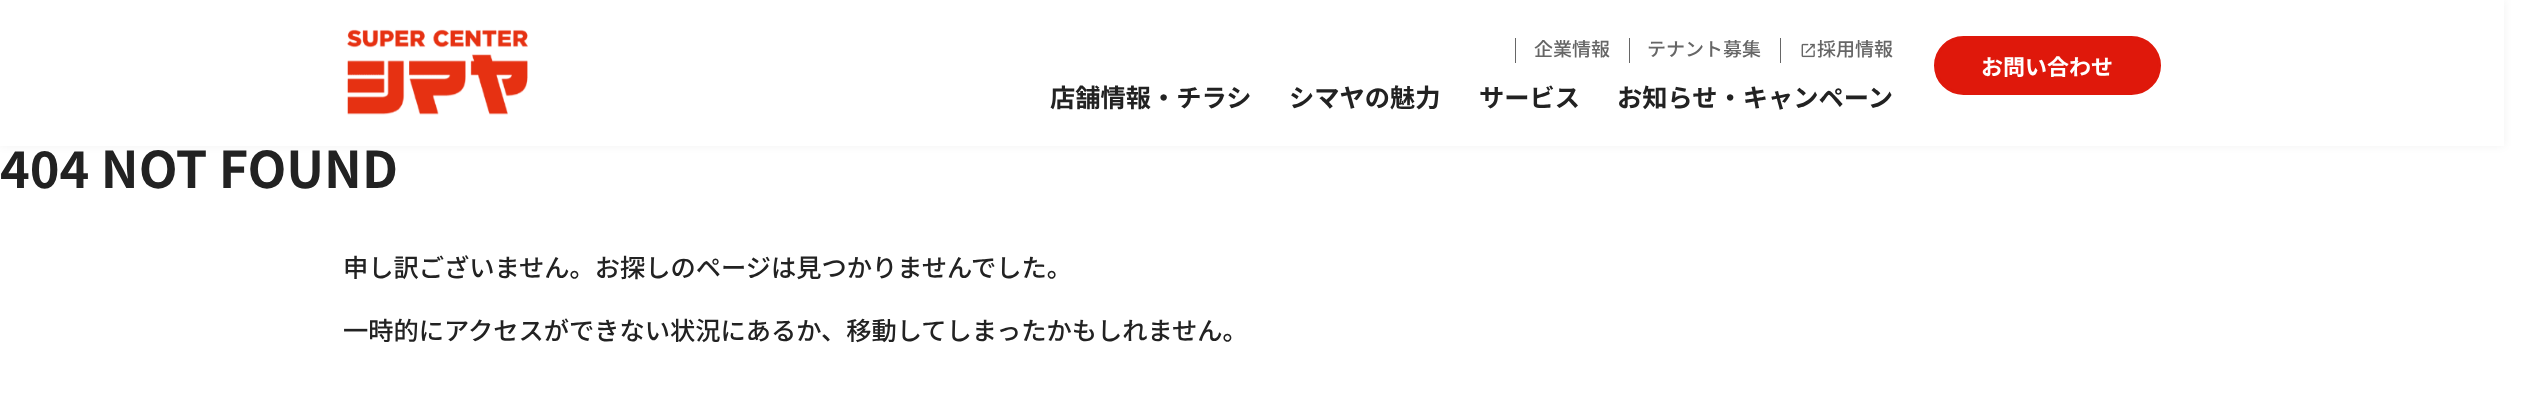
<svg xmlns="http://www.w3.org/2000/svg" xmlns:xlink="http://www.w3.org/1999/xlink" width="2522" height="408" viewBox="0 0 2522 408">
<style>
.cls-1{font:500 19px Noto Sans JP;fill:#666666}
.cls-2{font:bold 25.25px Noto Sans JP;fill:#222222}
.cls-3{font:bold 22px Noto Sans JP;fill:#ffffff}
.cls-4{font:bold 50.5px Noto Sans JP;fill:#222222}
.cls-5{font:500 25.25px Noto Sans JP;fill:#222222}
</style>
<rect width="100%" height="100%" fill="#ffffff"/>
<rect fill="#000000" fill-opacity="0.05" filter="blur(4.5px)" x="0" y="0" width="2504" height="146"/>
<rect fill="#ffffff" x="0" y="0" width="2504" height="146"/>
<image xlink:href="image0.png" x="347" y="29" width="181" height="86"/>
<rect fill="#666666" x="1515" y="38" width="1" height="25"/>
<rect fill="#666666" x="1629" y="38" width="1" height="25"/>
<rect fill="#666666" x="1780" y="38" width="1" height="25"/>
<image xlink:href="image1.png" x="1801" y="43" width="14" height="15"/>
<rect fill="#df180b" stroke="#df180b" stroke-width="3" x="1935.5" y="37.5" width="224" height="56" rx="28"/>
<text class="cls-1" x="1534" y="56">企業情報</text>
<text class="cls-1" x="1647" y="56">テナント募集</text>
<text class="cls-1" x="1817" y="56">採用情報</text>
<text class="cls-2" x="1050" y="107">店舗情報・チラシ</text>
<text class="cls-2" x="1289" y="107">シマヤの魅力</text>
<text class="cls-2" x="1479" y="107">サービス</text>
<text class="cls-2" x="1617" y="107">お知らせ・キャンペーン</text>
<text class="cls-3" x="1981" y="75">お問い合わせ</text>
<text class="cls-4" x="0" y="188">404 NOT FOUND</text>
<text class="cls-5" x="343" y="277">申し訳ございません。お探しのページは見つかりませんでした。</text>
<text class="cls-5" x="343" y="340">一時的にアクセスができない状況にあるか、移動してしまったかもしれません。</text>
</svg>
